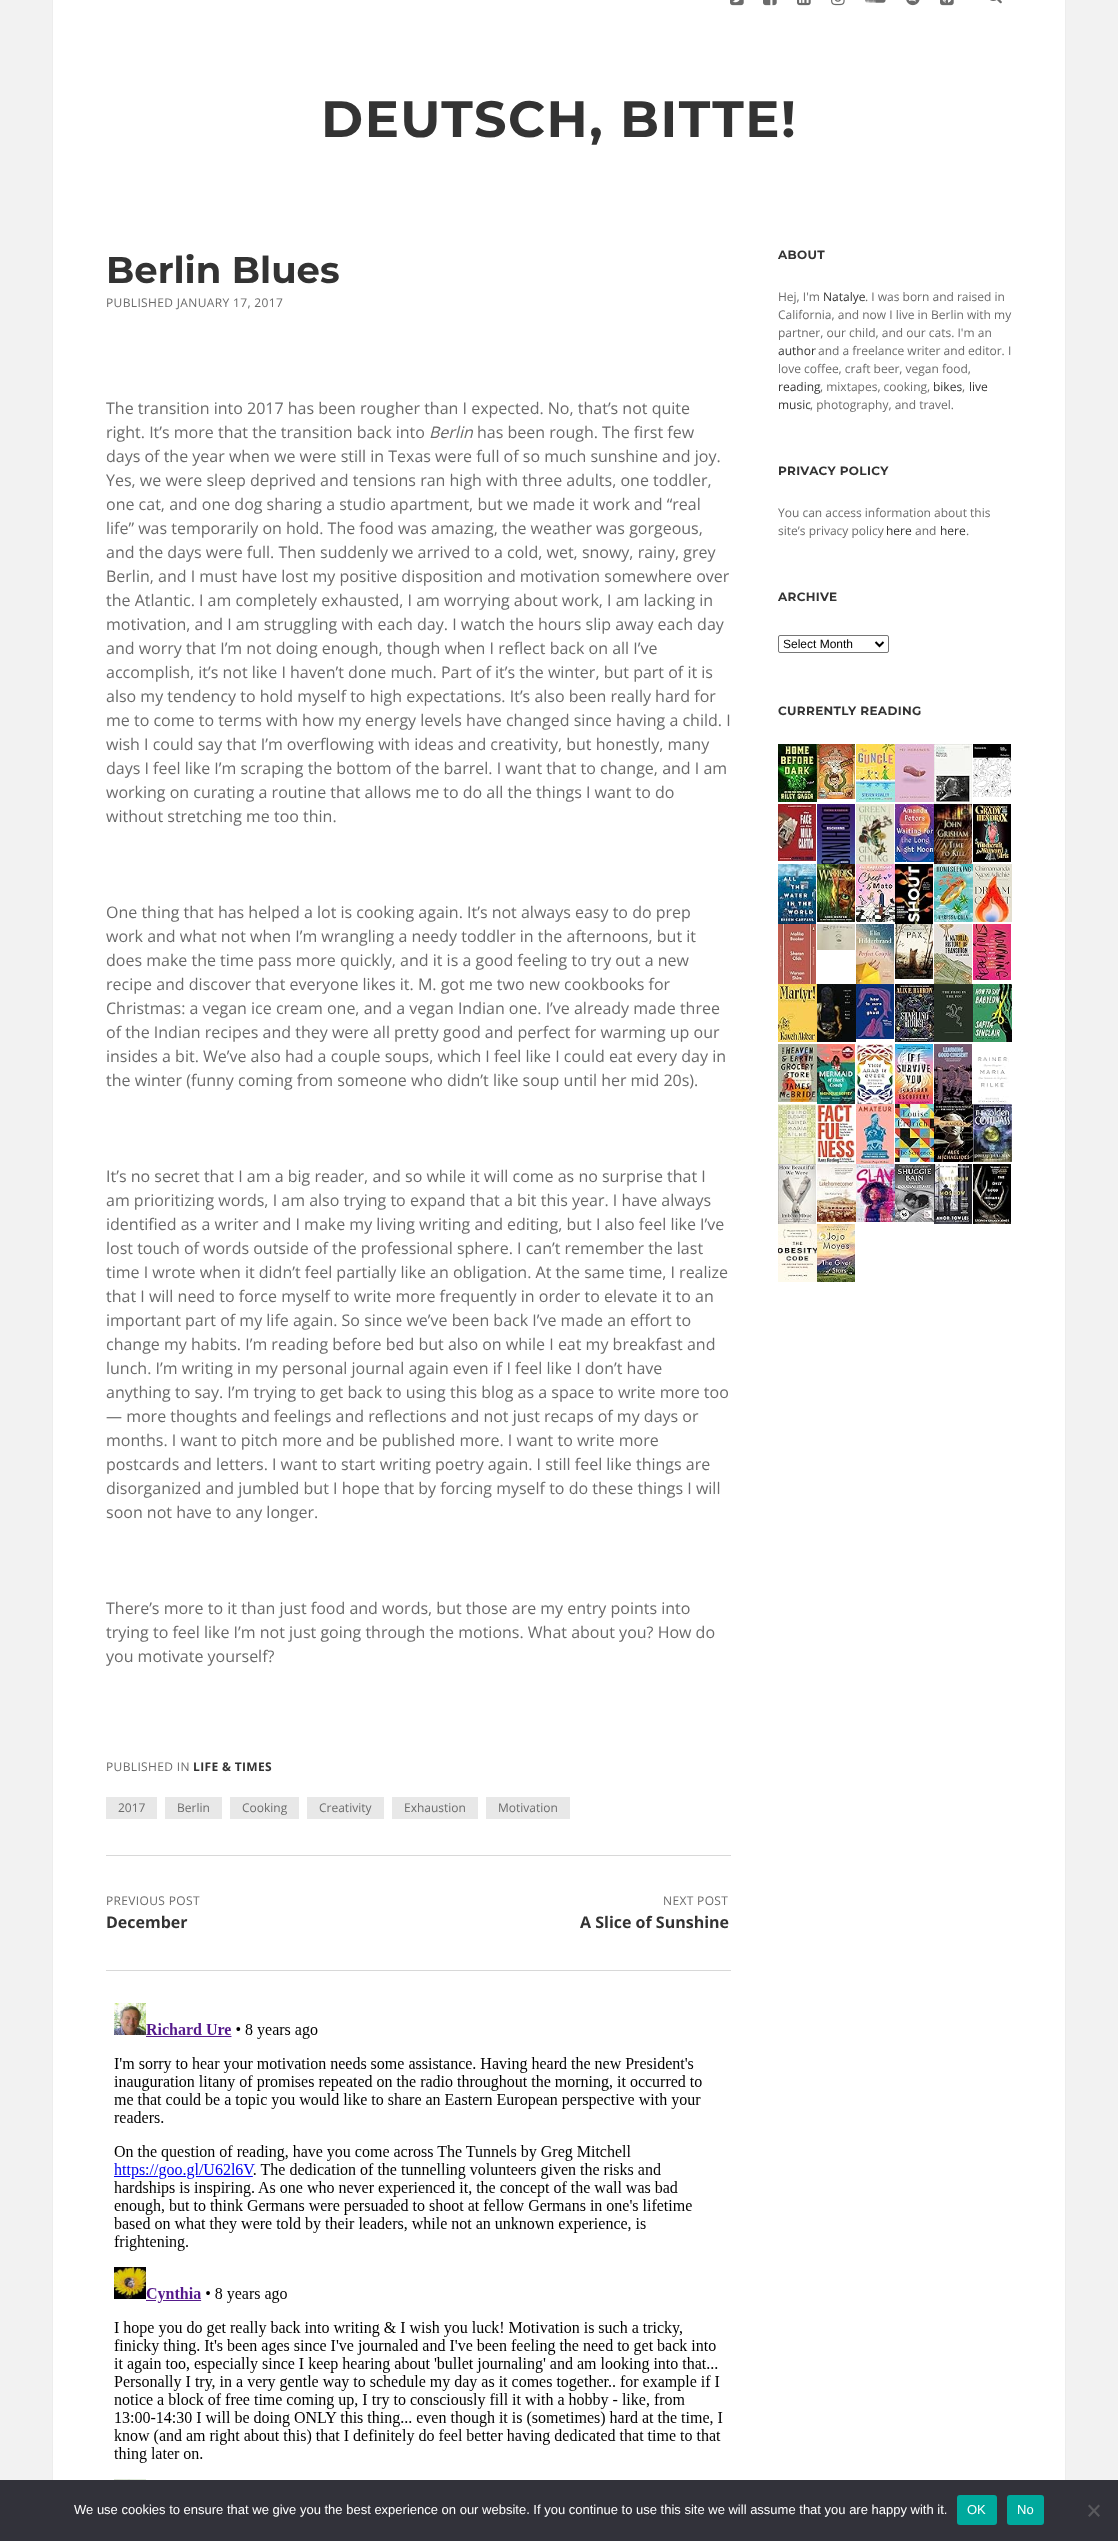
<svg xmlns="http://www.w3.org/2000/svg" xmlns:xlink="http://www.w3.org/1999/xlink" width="1118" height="2541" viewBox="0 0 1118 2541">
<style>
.cls-1{font:bold 51px Montserrat;letter-spacing:1.5px;fill:#333333}
.cls-2{font:bold 37px Montserrat;fill:#333333}
.cls-3{font:12px Open Sans;letter-spacing:0.35px;fill:#6b6b6b}
.cls-4{font:16px Open Sans;fill:#6b6b6b}
.cls-5{font:italic 16px Open Sans;fill:#6b6b6b}
.cls-6{font:bold 12px Open Sans;letter-spacing:0.35px;fill:#333333}
.cls-7{font:12px Open Sans;fill:#6b6b6b}
.cls-8{font:bold 16px Open Sans;fill:#333333}
.cls-9{font:bold 12px Montserrat;letter-spacing:0.35px;fill:#333333}
.cls-10{font:12px Open Sans;fill:#333333}
.cls-11{font:12px Liberation Sans;fill:#000000}
.cls-12{font:13px Liberation Sans;fill:#ffffff}
</style>
<rect width="100%" height="100%" fill="#f2f2f2"/>
<rect fill="#ffffff" x="53" y="0" width="1012" height="2480"/>
<rect fill="#ededed" x="1065" y="0" width="1" height="2480"/>
<rect fill="#ededed" x="52" y="0" width="1" height="2480"/>
<image xlink:href="image0.png" x="730" y="0" width="14" height="6"/>
<image xlink:href="image1.png" x="763" y="0" width="14" height="6"/>
<image xlink:href="image2.png" x="797" y="0" width="14" height="6"/>
<image xlink:href="image3.png" x="831" y="0" width="14" height="6"/>
<image xlink:href="image4.png" x="865" y="0" width="21" height="3"/>
<image xlink:href="image5.png" x="906" y="0" width="14" height="6"/>
<image xlink:href="image6.png" x="940" y="0" width="14" height="6"/>
<image xlink:href="image7.png" x="990" y="0" width="12" height="4"/>
<rect fill="#e8e8e8" x="106" y="1797" width="51" height="22"/>
<rect fill="#e8e8e8" x="165" y="1797" width="57" height="22"/>
<rect fill="#e8e8e8" x="230" y="1797" width="69" height="22"/>
<rect fill="#e8e8e8" x="307" y="1797" width="77" height="22"/>
<rect fill="#e8e8e8" x="392" y="1797" width="86" height="22"/>
<rect fill="#e8e8e8" x="486" y="1797" width="84" height="22"/>
<rect fill="#d8d8d8" x="106" y="1855" width="625" height="1"/>
<rect fill="#d8d8d8" x="106" y="1970" width="625" height="1"/>
<image xlink:href="image8.png" x="114" y="2003" width="609" height="477"/>
<rect fill="none" stroke="#767676" x="778.5" y="635.5" width="110" height="17" rx="1.5"/>
<path fill="none" stroke="#000000" stroke-width="2" d="M875.5 642L879.5 646L883.5 642"/>
<image xlink:href="image9.png" x="778" y="744" width="39" height="58"/>
<image xlink:href="image10.png" x="817" y="744" width="38" height="55"/>
<image xlink:href="image11.png" x="856" y="744" width="39" height="58"/>
<image xlink:href="image12.png" x="895" y="744" width="39" height="58"/>
<image xlink:href="image13.png" x="934" y="744" width="38" height="60"/>
<image xlink:href="image14.png" x="973" y="744" width="38" height="53"/>
<image xlink:href="image15.png" x="778" y="804" width="38" height="57"/>
<image xlink:href="image16.png" x="817" y="804" width="38" height="60"/>
<image xlink:href="image17.png" x="856" y="804" width="38" height="60"/>
<image xlink:href="image18.png" x="895" y="804" width="39" height="58"/>
<image xlink:href="image19.png" x="934" y="804" width="38" height="60"/>
<image xlink:href="image20.png" x="973" y="804" width="38" height="58"/>
<image xlink:href="image21.png" x="778" y="864" width="38" height="60"/>
<image xlink:href="image22.png" x="817" y="864" width="38" height="58"/>
<image xlink:href="image23.png" x="856" y="864" width="39" height="58"/>
<image xlink:href="image24.png" x="895" y="864" width="38" height="60"/>
<image xlink:href="image25.png" x="934" y="864" width="39" height="58"/>
<image xlink:href="image26.png" x="973" y="864" width="39" height="58"/>
<image xlink:href="image27.png" x="778" y="924" width="38" height="60"/>
<image xlink:href="image28.png" x="817" y="924" width="38" height="26"/>
<image xlink:href="image29.png" x="856" y="924" width="38" height="60"/>
<image xlink:href="image30.png" x="895" y="924" width="38" height="55"/>
<image xlink:href="image31.png" x="934" y="924" width="38" height="60"/>
<image xlink:href="image32.png" x="973" y="924" width="38" height="56"/>
<image xlink:href="image33.png" x="778" y="984" width="39" height="58"/>
<image xlink:href="image34.png" x="817" y="984" width="39" height="58"/>
<image xlink:href="image35.png" x="856" y="984" width="38" height="55"/>
<image xlink:href="image36.png" x="895" y="984" width="39" height="58"/>
<image xlink:href="image37.png" x="934" y="984" width="39" height="58"/>
<image xlink:href="image38.png" x="973" y="984" width="39" height="58"/>
<image xlink:href="image39.png" x="778" y="1044" width="39" height="58"/>
<image xlink:href="image40.png" x="817" y="1044" width="38" height="60"/>
<image xlink:href="image41.png" x="856" y="1044" width="38" height="60"/>
<image xlink:href="image42.png" x="895" y="1044" width="38" height="60"/>
<image xlink:href="image43.png" x="934" y="1044" width="38" height="60"/>
<image xlink:href="image44.png" x="977" y="1057" width="32" height="46"/>
<image xlink:href="image45.png" x="778" y="1104" width="38" height="60"/>
<image xlink:href="image46.png" x="817" y="1104" width="38" height="60"/>
<image xlink:href="image47.png" x="856" y="1104" width="38" height="60"/>
<image xlink:href="image48.png" x="895" y="1104" width="39" height="58"/>
<image xlink:href="image49.png" x="934" y="1104" width="39" height="58"/>
<image xlink:href="image50.png" x="973" y="1104" width="39" height="58"/>
<image xlink:href="image51.png" x="778" y="1164" width="38" height="60"/>
<image xlink:href="image52.png" x="817" y="1164" width="39" height="58"/>
<image xlink:href="image53.png" x="856" y="1164" width="39" height="58"/>
<image xlink:href="image54.png" x="895" y="1164" width="39" height="58"/>
<image xlink:href="image55.png" x="934" y="1164" width="38" height="60"/>
<image xlink:href="image56.png" x="973" y="1164" width="38" height="60"/>
<image xlink:href="image57.png" x="778" y="1224" width="39" height="58"/>
<image xlink:href="image58.png" x="817" y="1224" width="38" height="58"/>
<rect fill="#32323a" x="0" y="2480" width="1118" height="61"/>
<rect fill="#00a99d" x="957" y="2495" width="40" height="30" rx="3"/>
<rect fill="#00a99d" x="1007" y="2495" width="37" height="30" rx="3"/>
<path fill="#59595d" d="M1098.5 2504.5L1100 2506L1089.5 2517L1088 2515.5Z"/>
<path fill="#59595d" d="M1088 2506L1089.5 2504.5L1100 2515.5L1098.5 2517Z"/>
<text class="cls-1" x="321" y="137">DEUTSCH, BITTE!</text>
<text class="cls-2" x="106" y="283">Berlin Blues</text>
<text class="cls-3" x="106" y="307">PUBLISHED JANUARY 17, 2017</text>
<text class="cls-4"><tspan x="106" y="414">The transition into 2017 has been rougher than I expected. No, that’s not quite</tspan><tspan x="106" y="438">right. It’s more that the transition back into</tspan></text>
<text class="cls-5" x="429" y="438">Berlin</text>
<text class="cls-4" x="477" y="438">has been rough. The first few</text>
<text class="cls-4"><tspan x="106" y="462">days of the year when we were still in Texas were full of so much sunshine and joy.</tspan><tspan x="106" y="486">Yes, we were sleep deprived and tensions ran high with three adults, one toddler,</tspan><tspan x="106" y="510">one cat, and one dog sharing a studio apartment, but we made it work and “real</tspan><tspan x="106" y="534">life” was temporarily on hold. The food was amazing, the weather was gorgeous,</tspan><tspan x="106" y="558">and the days were full. Then suddenly we arrived to a cold, wet, snowy, rainy, grey</tspan><tspan x="106" y="582">Berlin, and I must have lost my positive disposition and motivation somewhere over</tspan><tspan x="106" y="606">the Atlantic. I am completely exhausted, I am worrying about work, I am lacking in</tspan><tspan x="106" y="630">motivation, and I am struggling with each day. I watch the hours slip away each day</tspan><tspan x="106" y="654">and worry that I’m not doing enough, though when I reflect back on all I’ve</tspan><tspan x="106" y="678">accomplish, it’s not like I haven’t done much. Part of it’s the winter, but part of it is</tspan><tspan x="106" y="702">also my tendency to hold myself to high expectations. It’s also been really hard for</tspan><tspan x="106" y="726">me to come to terms with how my energy levels have changed since having a child. I</tspan><tspan x="106" y="750">wish I could say that I’m overflowing with ideas and creativity, but honestly, many</tspan><tspan x="106" y="774">days I feel like I’m scraping the bottom of the barrel. I want that to change, and I am</tspan><tspan x="106" y="798">working on curating a routine that allows me to do all the things I want to do</tspan><tspan x="106" y="822">without stretching me too thin.</tspan></text>
<text class="cls-4"><tspan x="106" y="918">One thing that has helped a lot is cooking again. It’s not always easy to do prep</tspan><tspan x="106" y="942">work and what not when I’m wrangling a needy toddler in the afternoons, but it</tspan><tspan x="106" y="966">does make the time pass more quickly, and it is a good feeling to try out a new</tspan><tspan x="106" y="990">recipe and discover that everyone likes it. M. got me two new cookbooks for</tspan><tspan x="106" y="1014">Christmas: a vegan ice cream one, and a vegan Indian one. I’ve already made three</tspan><tspan x="106" y="1038">of the Indian recipes and they were all pretty good and perfect for warming up our</tspan><tspan x="106" y="1062">insides a bit. We’ve also had a couple soups, which I feel like I could eat every day in</tspan><tspan x="106" y="1086">the winter (funny coming from someone who didn’t like soup until her mid 20s).</tspan></text>
<text class="cls-4"><tspan x="106" y="1182">It’s no secret that I am a big reader, and so while it will come as no surprise that I</tspan><tspan x="106" y="1206">am prioritizing words, I am also trying to expand that a bit this year. I have always</tspan><tspan x="106" y="1230">identified as a writer and I make my living writing and editing, but I also feel like I’ve</tspan><tspan x="106" y="1254">lost touch of words outside of the professional sphere. I can’t remember the last</tspan><tspan x="106" y="1278">time I wrote when it didn’t feel partially like an obligation. At the same time, I realize</tspan><tspan x="106" y="1302">that I will need to force myself to write more frequently in order to elevate it to an</tspan><tspan x="106" y="1326">important part of my life again. So since we’ve been back I’ve made an effort to</tspan><tspan x="106" y="1350">change my habits. I’m reading before bed but also on while I eat my breakfast and</tspan><tspan x="106" y="1374">lunch. I’m writing in my personal journal again even if I feel like I don’t have</tspan><tspan x="106" y="1398">anything to say. I’m trying to get back to using this blog as a space to write more too</tspan><tspan x="106" y="1422">— more thoughts and feelings and reflections and not just recaps of my days or</tspan><tspan x="106" y="1446">months. I want to pitch more and be published more. I want to write more</tspan><tspan x="106" y="1470">postcards and letters. I want to start writing poetry again. I still feel like things are</tspan><tspan x="106" y="1494">disorganized and jumbled but I hope that by forcing myself to do these things I will</tspan><tspan x="106" y="1518">soon not have to any longer.</tspan></text>
<text class="cls-4"><tspan x="106" y="1614">There’s more to it than just food and words, but those are my entry points into</tspan><tspan x="106" y="1638">trying to feel like I’m not just going through the motions. What about you? How do</tspan><tspan x="106" y="1662">you motivate yourself?</tspan></text>
<text class="cls-3" x="106" y="1771">PUBLISHED IN</text>
<text class="cls-6" x="193" y="1771">LIFE &amp; TIMES</text>
<text class="cls-7" x="118" y="1812">2017</text>
<text class="cls-7" x="177" y="1812">Berlin</text>
<text class="cls-7" x="242" y="1812">Cooking</text>
<text class="cls-7" x="319" y="1812">Creativity</text>
<text class="cls-7" x="404" y="1812">Exhaustion</text>
<text class="cls-7" x="498" y="1812">Motivation</text>
<text class="cls-3" x="106" y="1905">PREVIOUS POST</text>
<text class="cls-8" x="106" y="1928">December</text>
<text class="cls-3" x="663" y="1905">NEXT POST</text>
<text class="cls-8" x="580" y="1928">A Slice of Sunshine</text>
<text class="cls-9" x="778" y="259">ABOUT</text>
<text class="cls-7" x="778" y="301">Hej, I'm</text>
<text class="cls-10" x="823" y="301">Natalye</text>
<text class="cls-7" x="865" y="301">. I was born and raised in</text>
<text class="cls-7"><tspan x="778" y="319">California, and now I live in Berlin with my</tspan><tspan x="778" y="337">partner, our child, and our cats. I'm an</tspan></text>
<text class="cls-10" x="778" y="355">author</text>
<text class="cls-7" x="818" y="355">and a freelance writer and editor. I</text>
<text class="cls-7" x="778" y="373">love coffee, craft beer, vegan food,</text>
<text class="cls-10" x="778" y="391">reading</text>
<text class="cls-7" x="820" y="391">, mixtapes, cooking,</text>
<text class="cls-10" x="933" y="391">bikes</text>
<text class="cls-7" x="962" y="391">,</text>
<text class="cls-10" x="969" y="391">live</text>
<text class="cls-10" x="778" y="409">music</text>
<text class="cls-7" x="810" y="409">, photography, and travel.</text>
<text class="cls-9" x="778" y="475">PRIVACY POLICY</text>
<text class="cls-7"><tspan x="778" y="517">You can access information about this</tspan><tspan x="778" y="535">site’s privacy policy</tspan></text>
<text class="cls-10" x="886" y="535">here</text>
<text class="cls-7" x="915" y="535">and</text>
<text class="cls-10" x="940" y="535">here</text>
<text class="cls-7" x="966" y="535">.</text>
<text class="cls-9" x="778" y="601">ARCHIVE</text>
<text class="cls-11" x="783" y="648">Select Month</text>
<text class="cls-9" x="778" y="715">CURRENTLY READING</text>
<text class="cls-12" x="74" y="2514">We use cookies to ensure that we give you the best experience on our website. If you continue to use this site we will assume that you are happy with it.</text>
<text class="cls-12" x="967" y="2514">OK</text>
<text class="cls-12" x="1017" y="2514">No</text>
</svg>
